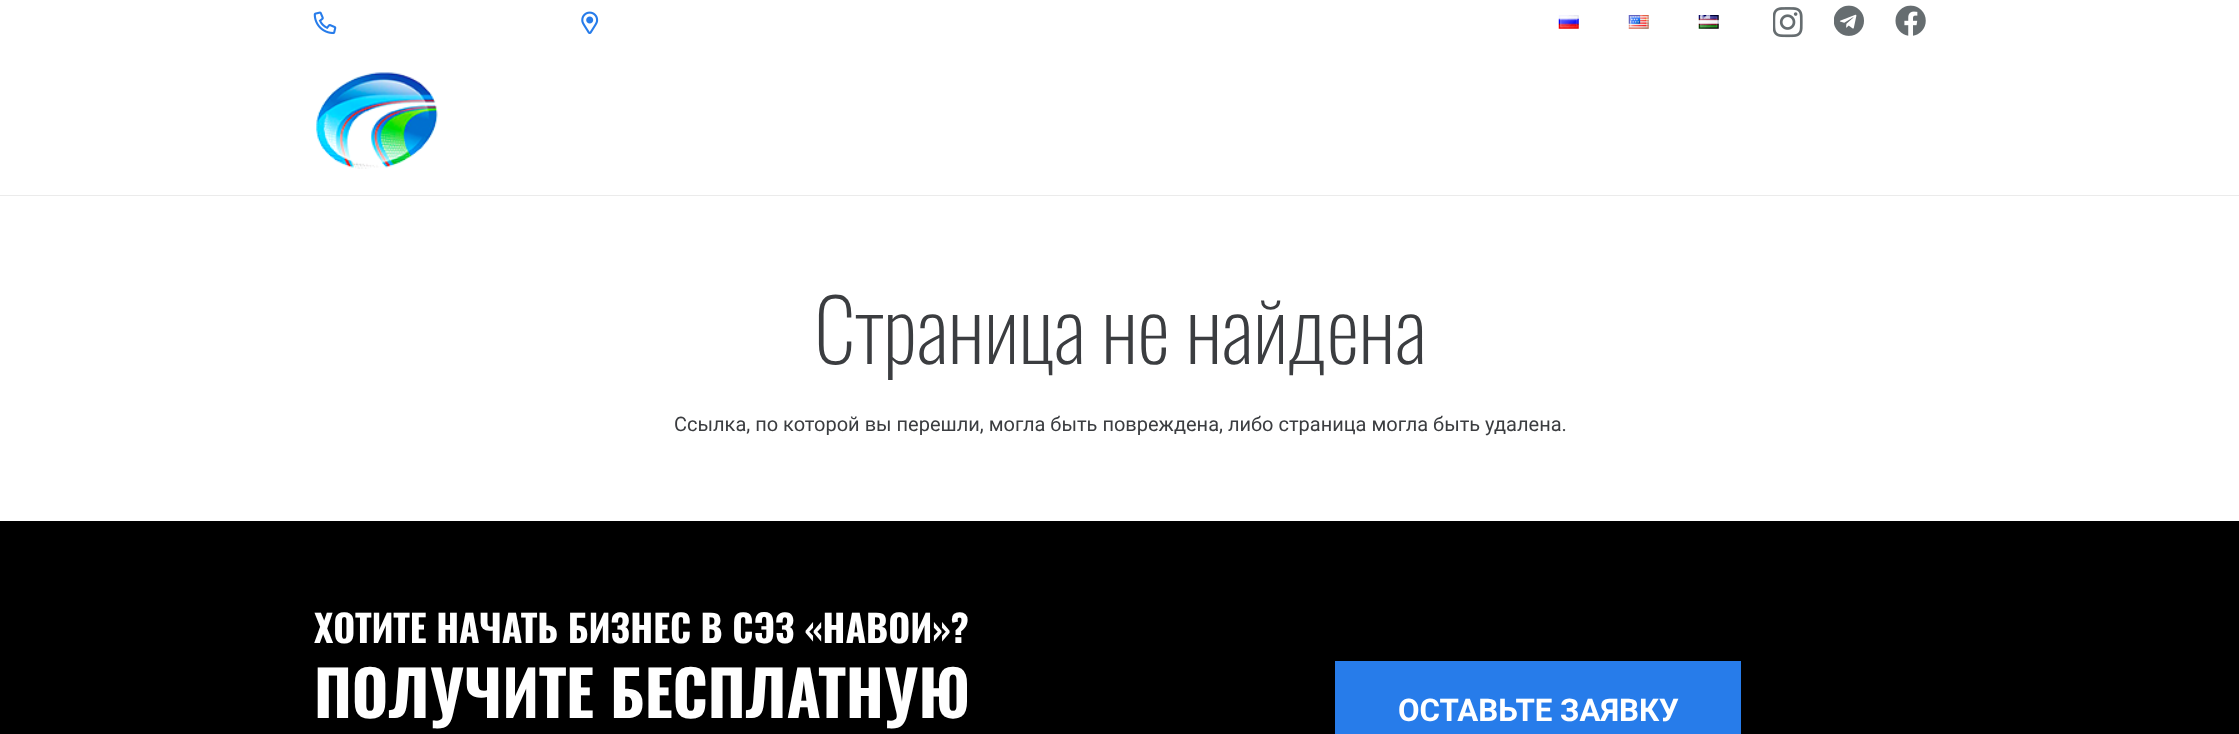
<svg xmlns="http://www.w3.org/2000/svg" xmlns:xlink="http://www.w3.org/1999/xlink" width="2239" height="734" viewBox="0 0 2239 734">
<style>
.cls-1{font:200 84.75px Oswald;fill:#3b3d40}
.cls-2{font:20px Roboto;fill:#3b3d40}
.cls-3{font:bold 37.5px Oswald;fill:#ffffff}
.cls-4{font:bold 62.5px Oswald;fill:#ffffff}
.cls-5{font:bold 31.25px Roboto;fill:#ffffff}
</style>
<rect width="100%" height="100%" fill="#ffffff"/>
<image xlink:href="image0.png" x="313" y="11" width="24" height="24"/>
<image xlink:href="image1.png" x="581" y="11" width="18" height="23"/>
<image xlink:href="image2.png" x="1558" y="15" width="21" height="14"/>
<image xlink:href="image3.png" x="1628" y="15" width="21" height="14"/>
<image xlink:href="image4.png" x="1698" y="15" width="21" height="14"/>
<image xlink:href="image5.png" x="1773" y="7" width="30" height="31"/>
<image xlink:href="image6.png" x="1834" y="5" width="30" height="31"/>
<image xlink:href="image7.png" x="1895" y="5" width="31" height="31"/>
<rect fill="#ebebeb" x="0" y="195" width="2239" height="1"/>
<image xlink:href="image8.png" x="316" y="72" width="122" height="97"/>
<rect fill="#000000" x="0" y="521" width="2239" height="213"/>
<rect fill="#277cea" x="1335" y="661" width="406" height="73"/>
<text class="cls-1" x="814" y="364">Страница не найдена</text>
<text class="cls-2" x="674" y="431">Ссылка, по которой вы перешли, могла быть повреждена, либо страница могла быть удалена.</text>
<text class="cls-3" x="314" y="643">ХОТИТЕ НАЧАТЬ БИЗНЕС В СЭЗ «НАВОИ»?</text>
<text class="cls-4" x="314" y="718">ПОЛУЧИТЕ БЕСПЛАТНУЮ</text>
<text class="cls-5" x="1398" y="721">ОСТАВЬТЕ ЗАЯВКУ</text>
</svg>
